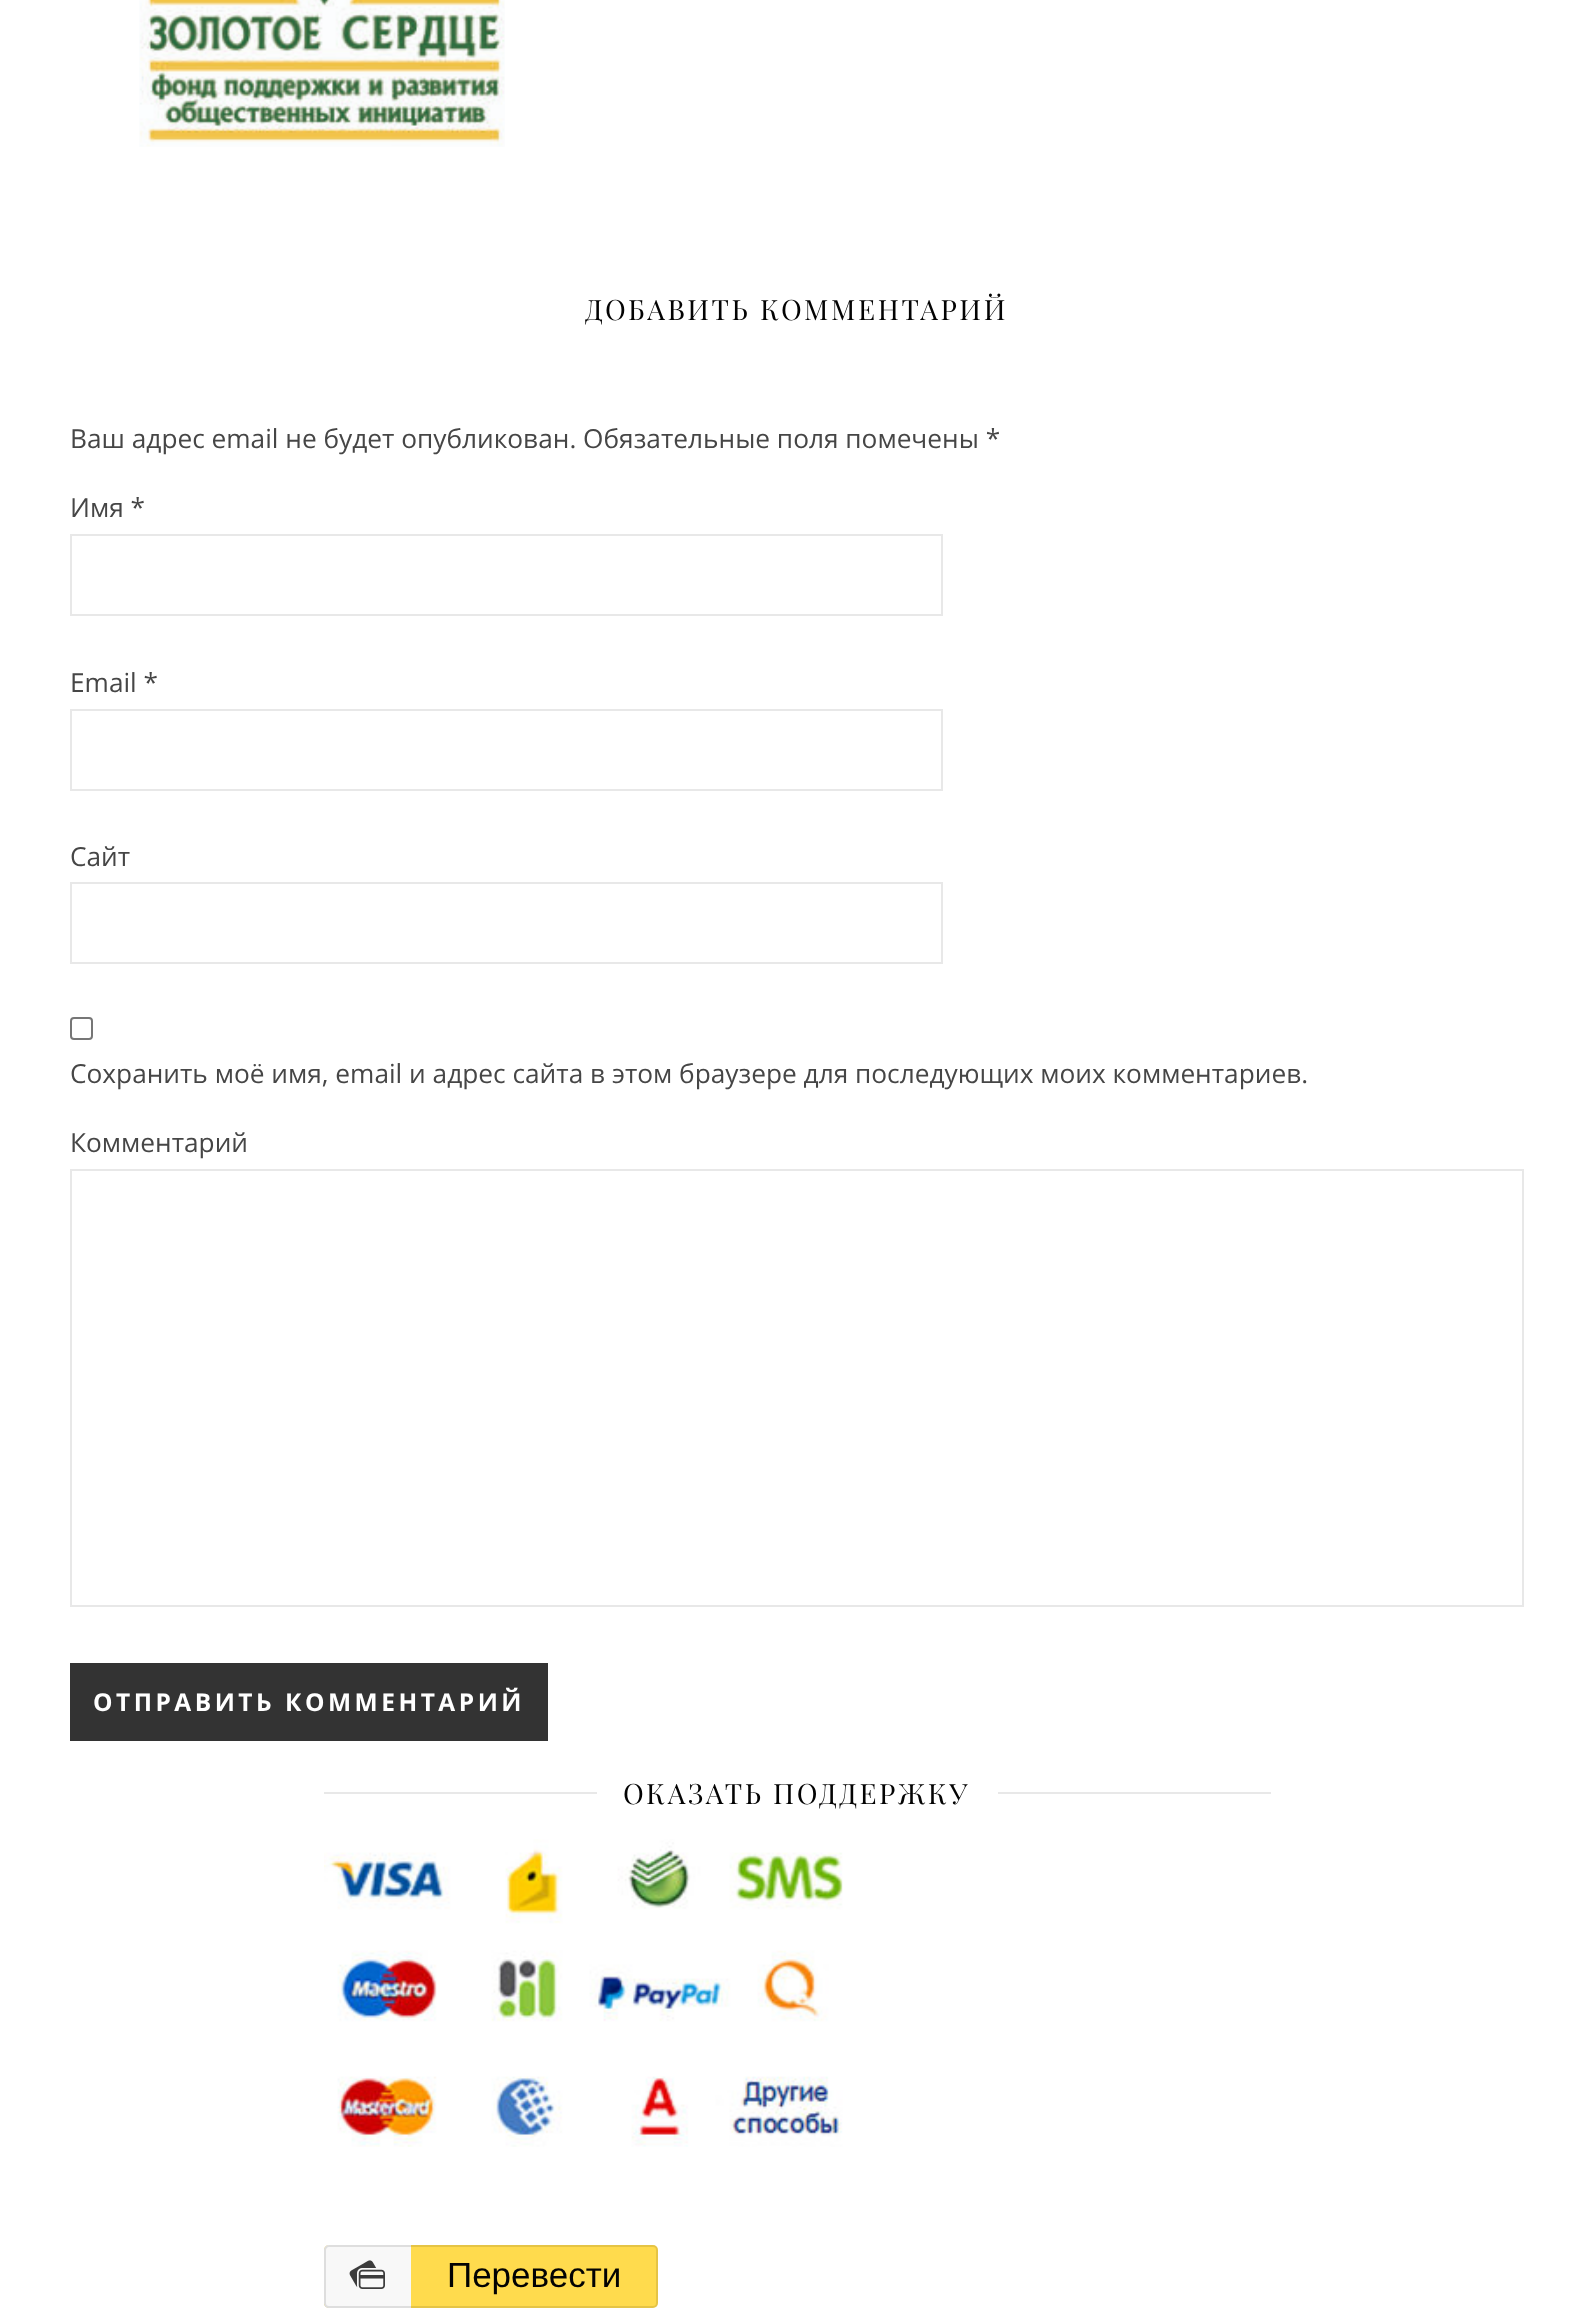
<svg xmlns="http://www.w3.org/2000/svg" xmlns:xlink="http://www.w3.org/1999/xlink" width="1594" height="2324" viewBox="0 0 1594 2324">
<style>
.cls-1{font:28px Playfair Display;letter-spacing:2.6px;fill:#030303}
.cls-2{font:26.25px Open Sans;fill:#464646}
.cls-3{font:bold 24.5px Open Sans;letter-spacing:3.5px;fill:#ffffff}
.cls-4{font:35px Liberation Sans;fill:#030303}
</style>
<rect width="100%" height="100%" fill="#ffffff"/>
<image xlink:href="image0.png" x="139" y="0" width="366" height="147"/>
<rect fill="none" stroke="#e8e8e8" stroke-width="2" x="71" y="535" width="871" height="80"/>
<rect fill="none" stroke="#e8e8e8" stroke-width="2" x="71" y="710" width="871" height="80"/>
<rect fill="none" stroke="#e8e8e8" stroke-width="2" x="71" y="883" width="871" height="80"/>
<rect fill="none" stroke="#767676" stroke-width="2" x="71" y="1018" width="21" height="21" rx="3"/>
<rect fill="none" stroke="#e8e8e8" stroke-width="2" x="71" y="1170" width="1452" height="436"/>
<rect fill="#333333" x="70" y="1663" width="478" height="78"/>
<rect fill="#e8e8e8" x="324" y="1792" width="273" height="2"/>
<rect fill="#e8e8e8" x="998" y="1792" width="273" height="2"/>
<image xlink:href="image1.png" x="324" y="1839" width="519" height="308"/>
<rect fill="#ffdb4d" x="324" y="2245" width="334" height="63" rx="5"/>
<rect fill="none" stroke="#000000" stroke-opacity="0.1" stroke-width="2" x="325" y="2246" width="332" height="61" rx="4"/>
<path fill="#f8f8f8" d="M329 2245H411V2308H329C326 2308 324 2306 324 2303V2250C324 2247 326 2245 329 2245Z"/>
<path fill="#000000" fill-opacity="0.1" fill-rule="evenodd" d="M329 2245H411V2308H329C326 2308 324 2306 324 2303V2250C324 2248 326 2245 329 2245ZM329 2247H411V2306H329C327 2306 326 2305 326 2303V2250C326 2249 327 2247 329 2247Z"/>
<image xlink:href="image2.png" x="349" y="2260" width="36" height="29"/>
<text class="cls-1" x="585" y="320">ДОБАВИТЬ КОММЕНТАРИЙ</text>
<text class="cls-2" x="70" y="448">Ваш адрес email не будет опубликован. Обязательные поля помечены *</text>
<text class="cls-2" x="70" y="517">Имя *</text>
<text class="cls-2" x="70" y="692">Email *</text>
<text class="cls-2" x="70" y="866">Сайт</text>
<text class="cls-2" x="70" y="1083">Сохранить моё имя, email и адрес сайта в этом браузере для последующих моих комментариев.</text>
<text class="cls-2" x="70" y="1152">Комментарий</text>
<text class="cls-3" x="93" y="1711">ОТПРАВИТЬ КОММЕНТАРИЙ</text>
<text class="cls-1" x="623" y="1804">ОКАЗАТЬ ПОДДЕРЖКУ</text>
<text class="cls-4" x="447" y="2287">Перевести</text>
</svg>
